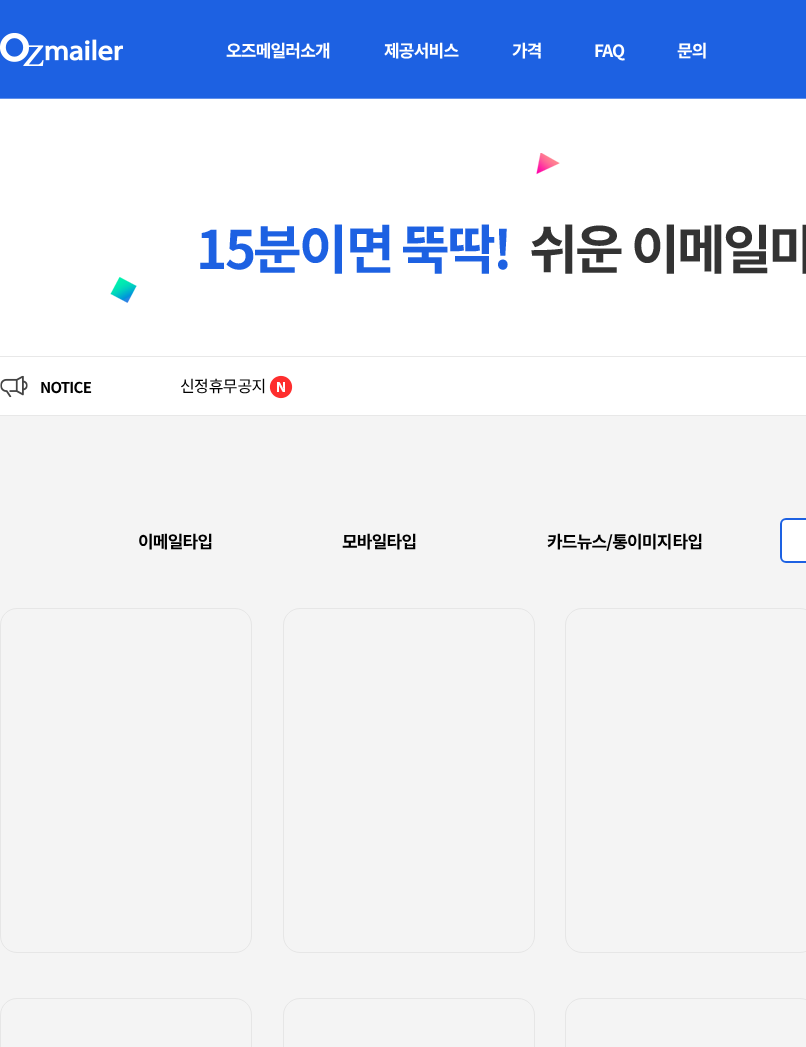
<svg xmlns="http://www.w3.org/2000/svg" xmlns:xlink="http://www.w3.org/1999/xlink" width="806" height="1047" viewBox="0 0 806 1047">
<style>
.cls-1{font:bold 17px Noto Sans KR;letter-spacing:-0.8px;fill:#ffffff}
.cls-2{font:bold 15px Noto Sans KR;letter-spacing:-0.75px;fill:#000000}
.cls-3{font:16px Noto Sans KR;letter-spacing:-0.75px;fill:#000000}
.cls-4{font:bold 17px Noto Sans KR;letter-spacing:-0.8px;fill:#000000}
</style>
<rect width="100%" height="100%" fill="#ffffff"/>
<rect fill="#1d61e2" x="0" y="0" width="806" height="98"/>
<rect fill="#6190eb" x="0" y="98" width="806" height="1"/>
<image xlink:href="image0.png" x="0" y="33" width="123" height="33"/>
<image xlink:href="image1.png" x="110" y="153" width="696" height="150"/>
<rect fill="#e8e8e8" x="0" y="356" width="806" height="1"/>
<image xlink:href="image2.png" x="0" y="375" width="28" height="23"/>
<image xlink:href="image3.png" x="269" y="375" width="24" height="24"/>
<rect fill="#f4f4f4" x="0" y="416" width="806" height="631"/>
<rect fill="#e8e8e8" x="0" y="415" width="806" height="1"/>
<path fill="#ffffff" d="M786 518H806V563H786C782.5 563 780 560.5 780 557V524C780 520.5 782.5 518 786 518Z"/>
<rect fill="none" stroke="#1d61e2" stroke-width="2" x="781" y="519" width="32" height="43" rx="5"/>
<rect fill="none" stroke="#e6e6e6" x="0.5" y="608.5" width="251" height="344" rx="16.5"/>
<rect fill="none" stroke="#e6e6e6" x="283.5" y="608.5" width="251" height="344" rx="16.5"/>
<rect fill="none" stroke="#e6e6e6" x="565.5" y="608.5" width="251" height="344" rx="16.5"/>
<rect fill="none" stroke="#e6e6e6" x="0.5" y="998.5" width="251" height="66" rx="16.5"/>
<rect fill="none" stroke="#e6e6e6" x="283.5" y="998.5" width="251" height="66" rx="16.5"/>
<rect fill="none" stroke="#e6e6e6" x="565.5" y="998.5" width="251" height="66" rx="16.5"/>
<text class="cls-1" x="226" y="57" word-spacing="-3">오즈메일러 소개</text>
<text class="cls-1" x="384" y="57" word-spacing="-3">제공 서비스</text>
<text class="cls-1" x="512" y="57">가격</text>
<text class="cls-1" x="594" y="57">FAQ</text>
<text class="cls-1" x="677" y="57">문의</text>
<text class="cls-2" x="40" y="393">NOTICE</text>
<text class="cls-3" x="180" y="392" word-spacing="-2">신정 휴무 공지</text>
<text class="cls-4" x="138" y="548" word-spacing="-3">이메일 타입</text>
<text class="cls-4" x="342" y="548" word-spacing="-3">모바일 타입</text>
<text class="cls-4" x="547" y="548" word-spacing="-2">카드뉴스/통이미지 타입</text>
</svg>
